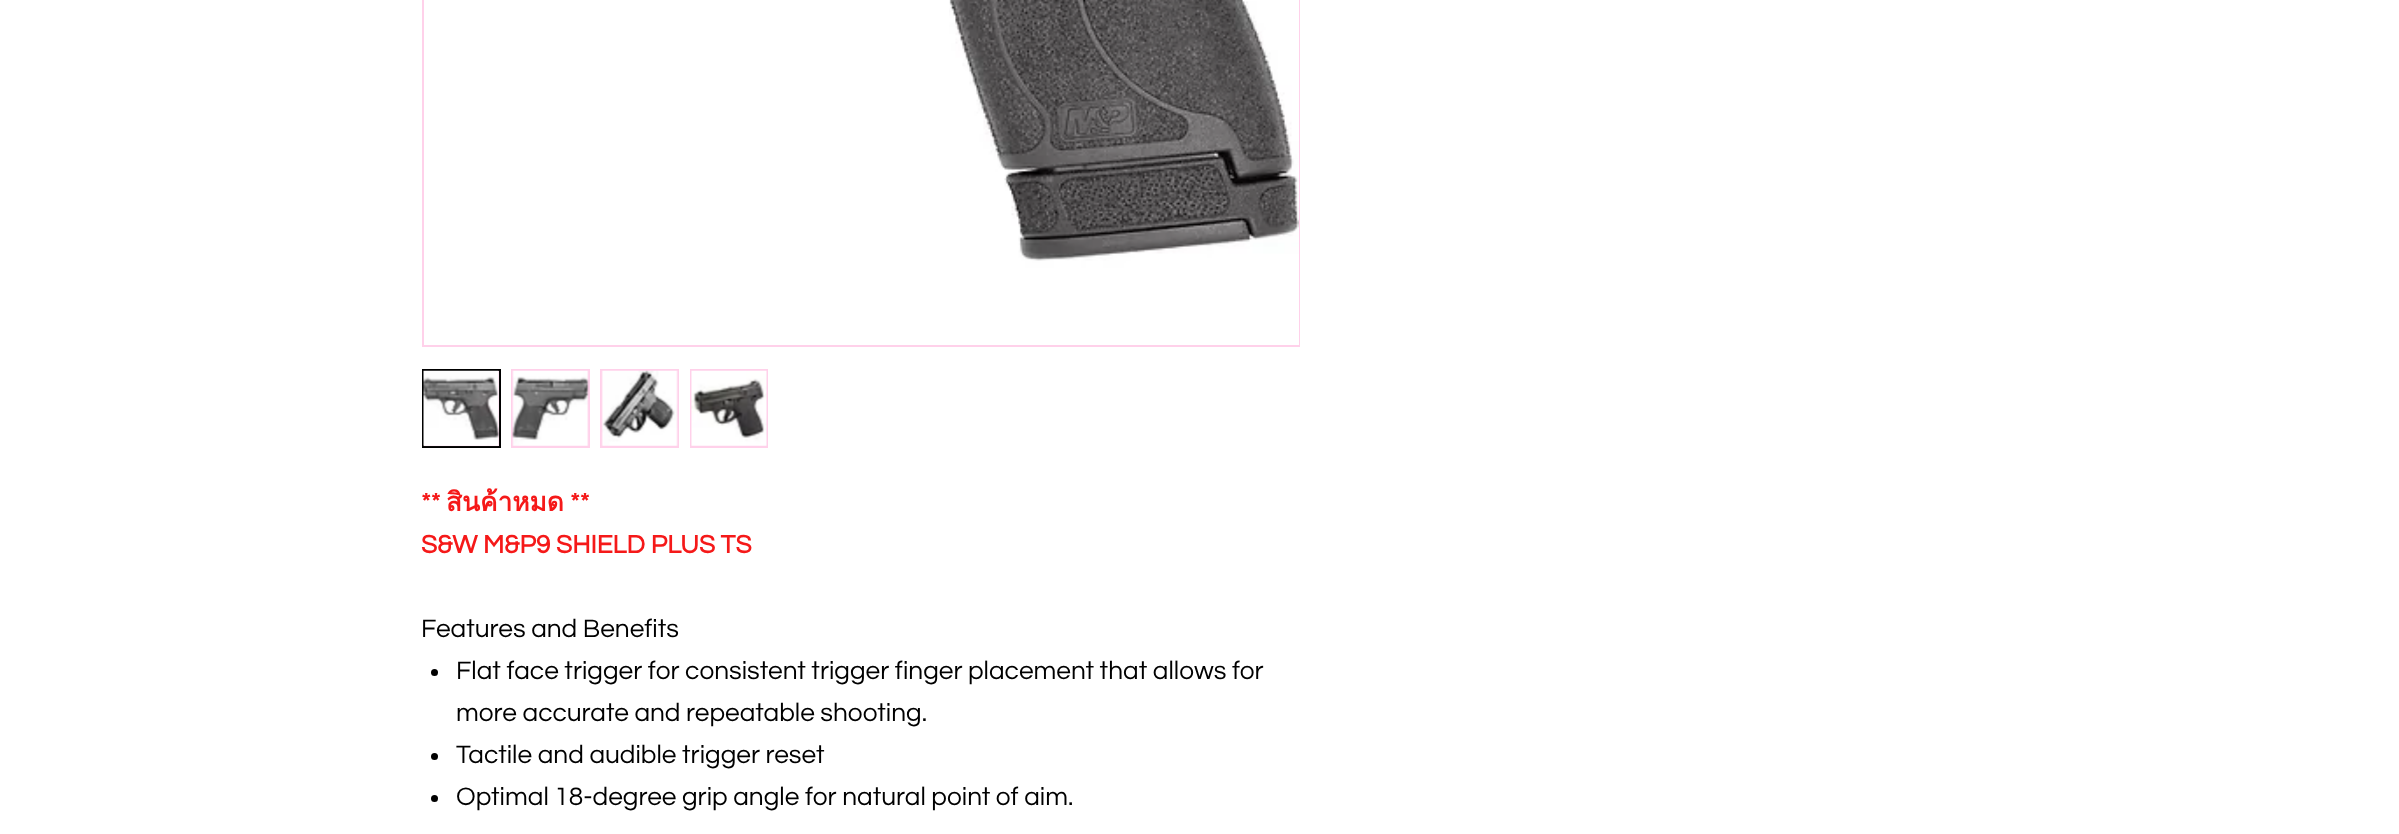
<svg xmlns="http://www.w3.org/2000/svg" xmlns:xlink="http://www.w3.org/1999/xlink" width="2399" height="834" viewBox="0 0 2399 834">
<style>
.cls-1{font:bold 26.25px Questrial;fill:#f51919}
.cls-2{font:bold 26.25px Loma;fill:#f51919}
.cls-3{font:26.25px Questrial;fill:#000000}
</style>
<rect width="100%" height="100%" fill="#ffffff"/>
<rect fill="none" stroke="#ffd1ea" stroke-width="2" x="423" y="-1" width="876" height="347"/>
<image xlink:href="image0.png" x="949" y="0" width="350" height="345"/>
<rect fill="#ffd1ea" stroke="#000000" stroke-width="2" x="423" y="370" width="77" height="77"/>
<image xlink:href="image1.png" x="423" y="370" width="77" height="77"/>
<rect fill="#ffd1ea" x="511" y="369" width="79" height="79"/>
<image xlink:href="image2.png" x="512" y="370" width="77" height="76"/>
<rect fill="#ffd1ea" x="600" y="369" width="79" height="79"/>
<image xlink:href="image3.png" x="601" y="370" width="77" height="76"/>
<rect fill="#ffd1ea" x="690" y="369" width="78" height="79"/>
<image xlink:href="image4.png" x="691" y="370" width="76" height="76"/>
<circle fill="#000000" cx="434.5" cy="672.5" r="3.5"/>
<circle fill="#000000" cx="434.5" cy="756.5" r="3.5"/>
<circle fill="#000000" cx="434.5" cy="798.5" r="3.5"/>
<text class="cls-1" x="421" y="511">**</text>
<text class="cls-2" x="446" y="511">สินค้าหมด</text>
<text class="cls-1" x="570" y="511">**</text>
<text class="cls-1" x="421" y="553">S&amp;W M&amp;P9 SHIELD PLUS TS</text>
<text class="cls-3" x="421" y="637">Features and Benefits</text>
<text class="cls-3"><tspan x="456" y="679">Flat face trigger for consistent trigger finger placement that allows for</tspan><tspan x="456" y="721">more accurate and repeatable shooting.</tspan><tspan x="456" y="763">Tactile and audible trigger reset</tspan><tspan x="456" y="805">Optimal 18-degree grip angle for natural point of aim.</tspan></text>
</svg>
